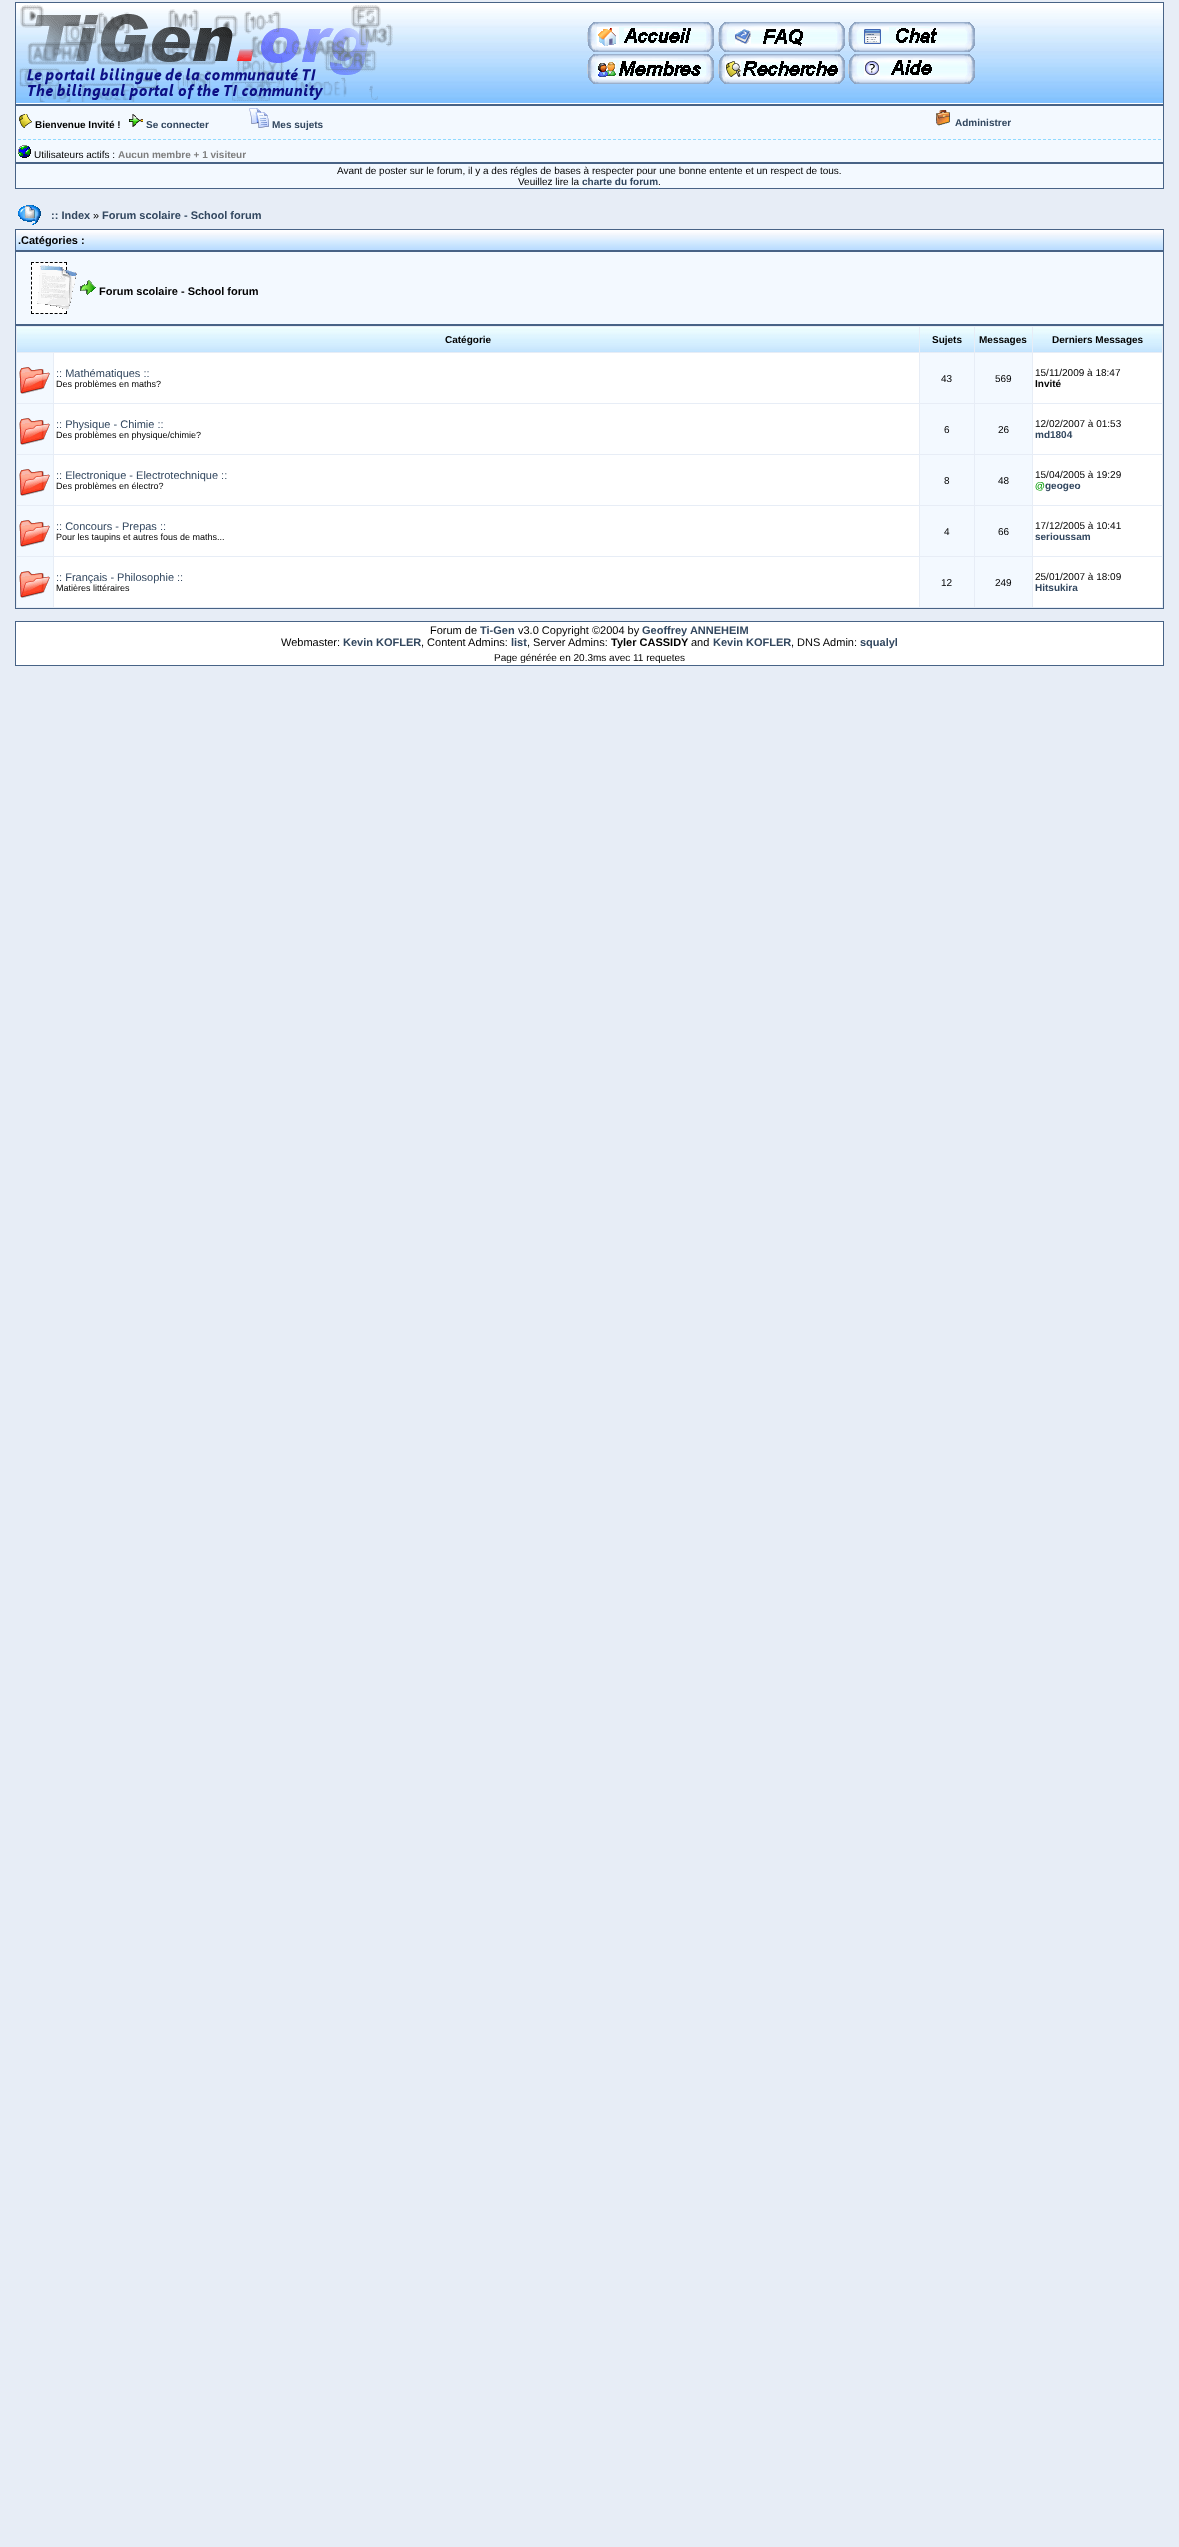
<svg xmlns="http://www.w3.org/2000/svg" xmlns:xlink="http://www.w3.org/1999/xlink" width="1179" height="2547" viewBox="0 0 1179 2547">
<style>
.cls-1{font:bold 10px Liberation Sans;fill:#000000}
.cls-2{font:bold 10px Liberation Sans;fill:#32475f}
.cls-3{font:10px Liberation Sans;fill:#000000}
.cls-4{font:bold 10px Liberation Sans;fill:#7e7e7e}
.cls-5{font:bold 11px Liberation Sans;fill:#32475f}
.cls-6{font:11px Liberation Sans;fill:#000000}
.cls-7{font:bold 11px Liberation Sans;fill:#000000}
.cls-8{font:11px Liberation Sans;fill:#32475f}
.cls-9{font:9px Liberation Sans;fill:#000000}
.cls-10{font:bold 10px Liberation Sans;fill:#009900}
</style>
<rect width="100%" height="100%" fill="#e7edf6"/>
<rect fill="none" stroke="#486386" x="15.5" y="2.5" width="1148" height="102"/>
<image xlink:href="image0.png" x="16" y="3" width="379" height="101"/>
<image xlink:href="image1.png" x="19" y="5" width="374" height="97"/>
<image xlink:href="image2.png" x="395" y="3" width="4" height="101"/>
<image xlink:href="image3.png" x="399" y="3" width="764" height="101"/>
<image xlink:href="image4.png" x="587" y="22" width="127" height="30"/>
<image xlink:href="image5.png" x="718" y="22" width="127" height="30"/>
<image xlink:href="image6.png" x="848" y="22" width="127" height="30"/>
<image xlink:href="image7.png" x="587" y="54" width="127" height="30"/>
<image xlink:href="image8.png" x="718" y="54" width="127" height="30"/>
<image xlink:href="image9.png" x="848" y="54" width="127" height="30"/>
<rect fill="none" stroke="#486386" x="15.5" y="105.5" width="1148" height="57"/>
<rect fill="#f3f9ff" x="16" y="106" width="1147" height="56"/>
<image xlink:href="image10.png" x="19" y="114" width="13" height="14"/>
<image xlink:href="image11.png" x="129" y="114" width="14" height="13"/>
<image xlink:href="image12.png" x="249" y="108" width="20" height="20"/>
<image xlink:href="image13.png" x="936" y="110" width="14" height="16"/>
<path fill="none" stroke="#91daff" stroke-dasharray="3 2" d="M18 139.5H1161"/>
<image xlink:href="image14.png" x="18" y="145" width="13" height="13"/>
<rect fill="#f3f9ff" stroke="#486386" x="15.5" y="163.5" width="1148" height="25"/>
<image xlink:href="image15.png" x="18" y="205" width="23" height="20"/>
<rect fill="none" stroke="#486386" x="15.5" y="229.5" width="1148" height="21"/>
<image xlink:href="image16.png" x="16" y="230" width="1147" height="20"/>
<rect fill="none" stroke="#486386" x="15.5" y="251.5" width="1148" height="73"/>
<rect fill="#f3f9ff" x="16" y="252" width="1147" height="72"/>
<rect fill="#ffffff" x="31" y="262" width="36" height="52"/>
<path fill="none" stroke="#000000" stroke-dasharray="3 1.71" d="M31 262.5H67"/>
<path fill="none" stroke="#000000" stroke-dasharray="3 1.9" d="M66.5 262V314"/>
<path fill="none" stroke="#000000" stroke-dasharray="3 1.71" d="M31 313.5H67"/>
<path fill="none" stroke="#000000" stroke-dasharray="3 1.9" d="M31.5 262V314"/>
<image xlink:href="image17.png" x="37" y="265" width="40" height="44"/>
<image xlink:href="image18.png" x="80" y="280" width="16" height="15"/>
<rect fill="none" stroke="#486386" x="15.5" y="325.5" width="1148" height="283"/>
<image xlink:href="image19.png" x="17" y="327" width="902" height="25"/>
<image xlink:href="image20.png" x="920" y="327" width="54" height="25"/>
<image xlink:href="image21.png" x="975" y="327" width="57" height="25"/>
<image xlink:href="image22.png" x="1033" y="327" width="129" height="25"/>
<rect fill="#f3f9ff" x="17" y="353" width="36" height="50"/>
<image xlink:href="image23.png" x="19" y="367" width="31" height="27"/>
<rect fill="#ffffff" x="54" y="353" width="865" height="50"/>
<rect fill="#f3f9ff" x="920" y="353" width="54" height="50"/>
<rect fill="#f3f9ff" x="975" y="353" width="57" height="50"/>
<rect fill="#ffffff" x="1033" y="353" width="129" height="50"/>
<rect fill="#f3f9ff" x="17" y="404" width="36" height="50"/>
<image xlink:href="image23.png" x="19" y="418" width="31" height="27"/>
<rect fill="#ffffff" x="54" y="404" width="865" height="50"/>
<rect fill="#f3f9ff" x="920" y="404" width="54" height="50"/>
<rect fill="#f3f9ff" x="975" y="404" width="57" height="50"/>
<rect fill="#ffffff" x="1033" y="404" width="129" height="50"/>
<rect fill="#f3f9ff" x="17" y="455" width="36" height="50"/>
<image xlink:href="image23.png" x="19" y="469" width="31" height="27"/>
<rect fill="#ffffff" x="54" y="455" width="865" height="50"/>
<rect fill="#f3f9ff" x="920" y="455" width="54" height="50"/>
<rect fill="#f3f9ff" x="975" y="455" width="57" height="50"/>
<rect fill="#ffffff" x="1033" y="455" width="129" height="50"/>
<rect fill="#f3f9ff" x="17" y="506" width="36" height="50"/>
<image xlink:href="image23.png" x="19" y="520" width="31" height="27"/>
<rect fill="#ffffff" x="54" y="506" width="865" height="50"/>
<rect fill="#f3f9ff" x="920" y="506" width="54" height="50"/>
<rect fill="#f3f9ff" x="975" y="506" width="57" height="50"/>
<rect fill="#ffffff" x="1033" y="506" width="129" height="50"/>
<rect fill="#f3f9ff" x="17" y="557" width="36" height="50"/>
<image xlink:href="image23.png" x="19" y="571" width="31" height="27"/>
<rect fill="#ffffff" x="54" y="557" width="865" height="50"/>
<rect fill="#f3f9ff" x="920" y="557" width="54" height="50"/>
<rect fill="#f3f9ff" x="975" y="557" width="57" height="50"/>
<rect fill="#ffffff" x="1033" y="557" width="129" height="50"/>
<rect fill="none" stroke="#486386" x="15.5" y="621.5" width="1148" height="44"/>
<rect fill="#ffffff" x="16" y="622" width="1147" height="43"/>
<text class="cls-1" x="35" y="128">Bienvenue Invité !</text>
<text class="cls-2" x="146" y="128">Se connecter</text>
<text class="cls-2" x="272" y="128">Mes sujets</text>
<text class="cls-2" x="955" y="126">Administrer</text>
<text class="cls-3" x="34" y="158">Utilisateurs actifs :</text>
<text class="cls-4" x="118" y="158">Aucun membre + 1 visiteur</text>
<text class="cls-3" x="337" y="174">Avant de poster sur le forum, il y a des régles de bases à respecter pour une bonne entente et un respect de tous.</text>
<text class="cls-3" x="518" y="185">Veuillez lire la</text>
<text class="cls-2" x="582" y="185">charte du forum</text>
<text class="cls-3" x="658" y="185">.</text>
<text class="cls-5" x="51" y="219">:: Index</text>
<text class="cls-6" x="93" y="219">»</text>
<text class="cls-5" x="102" y="219">Forum scolaire - School forum</text>
<text class="cls-7" x="18" y="244">.Catégories :</text>
<text class="cls-7" x="99" y="295">Forum scolaire - School forum</text>
<text class="cls-1" x="445" y="343">Catégorie</text>
<text class="cls-1" x="932" y="343">Sujets</text>
<text class="cls-1" x="979" y="343">Messages</text>
<text class="cls-1" x="1052" y="343">Derniers Messages</text>
<text class="cls-8" x="56" y="377">:: Mathématiques ::</text>
<text class="cls-9" x="56" y="387">Des problèmes en maths?</text>
<text class="cls-3" x="941" y="382">43</text>
<text class="cls-3" x="995" y="382">569</text>
<text class="cls-3" x="1035" y="376">15/11/2009 à 18:47</text>
<text class="cls-1" x="1035" y="387">Invité</text>
<text class="cls-8" x="56" y="428">:: Physique - Chimie ::</text>
<text class="cls-9" x="56" y="438">Des problèmes en physique/chimie?</text>
<text class="cls-3" x="944" y="433">6</text>
<text class="cls-3" x="998" y="433">26</text>
<text class="cls-3" x="1035" y="427">12/02/2007 à 01:53</text>
<text class="cls-2" x="1035" y="438">md1804</text>
<text class="cls-8" x="56" y="479">:: Electronique - Electrotechnique ::</text>
<text class="cls-9" x="56" y="489">Des problèmes en électro?</text>
<text class="cls-3" x="944" y="484">8</text>
<text class="cls-3" x="998" y="484">48</text>
<text class="cls-3" x="1035" y="478">15/04/2005 à 19:29</text>
<text class="cls-10" x="1035" y="489">@</text>
<text class="cls-2" x="1045" y="489">geogeo</text>
<text class="cls-8" x="56" y="530">:: Concours - Prepas ::</text>
<text class="cls-9" x="56" y="540">Pour les taupins et autres fous de maths...</text>
<text class="cls-3" x="944" y="535">4</text>
<text class="cls-3" x="998" y="535">66</text>
<text class="cls-3" x="1035" y="529">17/12/2005 à 10:41</text>
<text class="cls-2" x="1035" y="540">serioussam</text>
<text class="cls-8" x="56" y="581">:: Français - Philosophie ::</text>
<text class="cls-9" x="56" y="591">Matières littéraires</text>
<text class="cls-3" x="941" y="586">12</text>
<text class="cls-3" x="995" y="586">249</text>
<text class="cls-3" x="1035" y="580">25/01/2007 à 18:09</text>
<text class="cls-2" x="1035" y="591">Hitsukira</text>
<text class="cls-6" x="430" y="634">Forum de</text>
<text class="cls-5" x="480" y="634">Ti-Gen</text>
<text class="cls-6" x="518" y="634">v3.0 Copyright ©2004 by</text>
<text class="cls-5" x="642" y="634">Geoffrey ANNEHEIM</text>
<text class="cls-6" x="281" y="646">Webmaster:</text>
<text class="cls-5" x="343" y="646">Kevin KOFLER</text>
<text class="cls-6" x="421" y="646">, Content Admins:</text>
<text class="cls-5" x="511" y="646">list</text>
<text class="cls-6" x="527" y="646">, Server Admins:</text>
<text class="cls-7" x="611" y="646">Tyler CASSIDY</text>
<text class="cls-6" x="691" y="646">and</text>
<text class="cls-5" x="713" y="646">Kevin KOFLER</text>
<text class="cls-6" x="791" y="646">, DNS Admin:</text>
<text class="cls-5" x="860" y="646">squalyl</text>
<text class="cls-3" x="494" y="661">Page générée en 20.3ms avec 11 requetes</text>
</svg>
